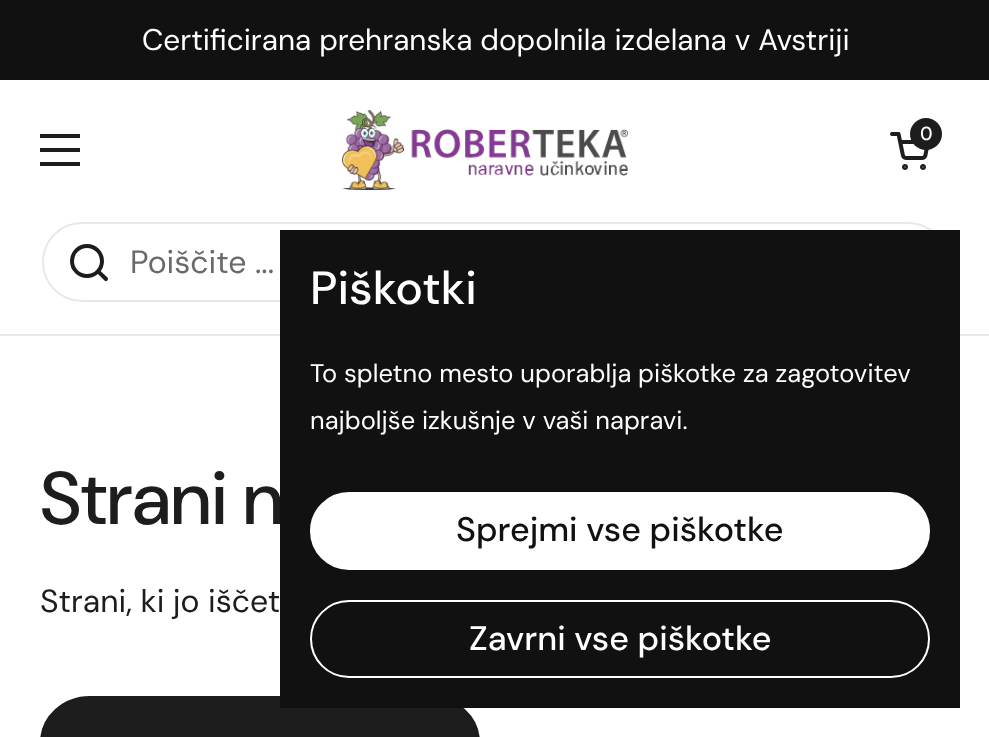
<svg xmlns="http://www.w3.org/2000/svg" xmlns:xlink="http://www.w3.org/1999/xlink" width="989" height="737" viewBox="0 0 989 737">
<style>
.cls-1{font:29.75px DM Sans;fill:#ffffff}
.cls-2{font:500 19px 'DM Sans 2';fill:#ffffff}
.cls-3{font:32px 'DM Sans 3';fill:#6a6a6a}
.cls-4{font:500 74.5px DM Sans;fill:#1d1d1d}
.cls-5{font:32px 'DM Sans 2';fill:#1d1d1d}
.cls-6{font:500 46.5px 'DM Sans 3';fill:#ffffff}
.cls-7{font:25.5px 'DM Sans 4';fill:#ffffff}
.cls-8{font:500 34px 'DM Sans 4';fill:#111111}
.cls-9{font:500 34px 'DM Sans 4';fill:#ffffff}
</style>
<rect width="100%" height="100%" fill="#ffffff"/>
<rect fill="#111111" x="0" y="0" width="989" height="80"/>
<rect fill="#1d1d1d" x="40" y="134" width="40" height="4"/>
<rect fill="#1d1d1d" x="40" y="148" width="40" height="4"/>
<rect fill="#1d1d1d" x="40" y="162" width="40" height="4"/>
<image xlink:href="image0.png" x="342" y="110" width="286" height="80"/>
<image xlink:href="image1.png" x="890" y="132" width="39" height="38"/>
<circle fill="#1d1d1d" cx="926" cy="134" r="16"/>
<rect fill="#e8e8e8" x="0" y="334" width="989" height="2"/>
<rect fill="none" stroke="#e8e8e8" stroke-width="2" x="43" y="223" width="904" height="78" rx="39"/>
<circle fill="none" stroke="#1d1d1d" stroke-width="4" cx="87" cy="261" r="15"/>
<path fill="#1d1d1d" d="M100 270.5L99 269L96 272L97.5 273.5ZM104.5 280.5C106.5 282.5 109 279.5 107.5 277.5ZM97.5 273.5L104.5 280.5L107.5 277.5L100 270.5Z"/>
<rect fill="#1d1d1d" stroke="#1d1d1d" stroke-width="2" x="41" y="697" width="438" height="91" rx="49"/>
<text class="cls-1" x="142" y="50">Certificirana prehranska dopolnila izdelana v Avstriji</text>
<text class="cls-2" x="920" y="140">0</text>
<text class="cls-3" x="130" y="273">Poiščite ...</text>
<text class="cls-4" x="40" y="524">Strani n</text>
<text class="cls-5" x="40" y="612">Strani, ki jo iščet</text>
<rect fill="#111111" x="280" y="230" width="680" height="478"/>
<text class="cls-6" x="310" y="304">Piškotki</text>
<text class="cls-7"><tspan x="310" y="382">To spletno mesto uporablja piškotke za zagotovitev</tspan><tspan x="310" y="429">najboljše izkušnje v vaši napravi.</tspan></text>
<rect fill="#ffffff" stroke="#ffffff" stroke-width="2" x="311" y="493" width="618" height="76" rx="38"/>
<text class="cls-8" x="456" y="541">Sprejmi vse piškotke</text>
<rect fill="none" stroke="#ffffff" stroke-width="2" x="311" y="601" width="618" height="76" rx="38"/>
<text class="cls-9" x="469" y="650">Zavrni vse piškotke</text>
</svg>
